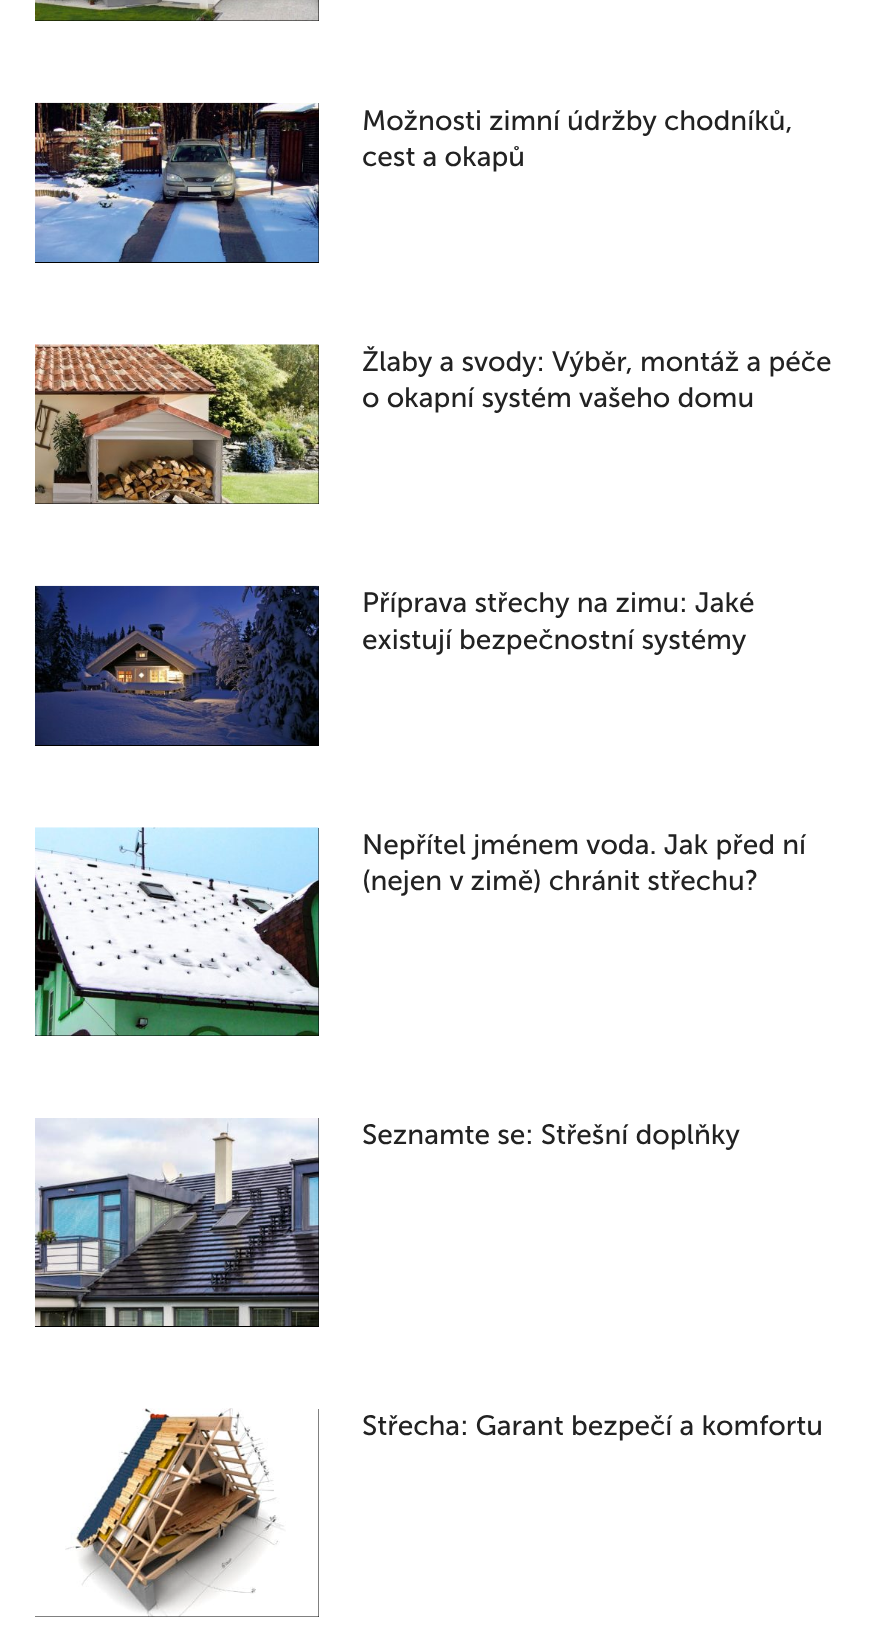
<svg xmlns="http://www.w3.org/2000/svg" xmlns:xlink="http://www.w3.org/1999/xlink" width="878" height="1626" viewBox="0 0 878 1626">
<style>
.cls-1{font:28px Museo Sans;fill:#222222}
</style>
<rect width="100%" height="100%" fill="#ffffff"/>
<rect fill="#000000" x="35" y="0" width="284" height="21"/>
<image xlink:href="image0.png" x="35" y="0" width="284" height="21"/>
<rect fill="#000000" x="35" y="103" width="284" height="160"/>
<image xlink:href="image1.png" x="35" y="102" width="284" height="160"/>
<rect fill="#000000" x="35" y="345" width="284" height="159"/>
<image xlink:href="image2.png" x="35" y="344" width="284" height="160"/>
<rect fill="#000000" x="35" y="586" width="284" height="160"/>
<image xlink:href="image3.png" x="35" y="585" width="284" height="160"/>
<rect fill="#000000" x="35" y="828" width="284" height="208"/>
<image xlink:href="image4.png" x="35" y="827" width="284" height="209"/>
<rect fill="#000000" x="35" y="1118" width="284" height="209"/>
<image xlink:href="image5.png" x="35" y="1118" width="284" height="208"/>
<rect fill="#000000" x="35" y="1409" width="284" height="208"/>
<image xlink:href="image6.png" x="35" y="1408" width="284" height="209"/>
<text class="cls-1"><tspan x="362" y="130">Možnosti zimní údržby chodníků,</tspan><tspan x="362" y="166">cest a okapů</tspan></text>
<text class="cls-1"><tspan x="362" y="371">Žlaby a svody: Výběr, montáž a péče</tspan><tspan x="362" y="407">o okapní systém vašeho domu</tspan></text>
<text class="cls-1"><tspan x="362" y="612">Příprava střechy na zimu: Jaké</tspan><tspan x="362" y="649">existují bezpečnostní systémy</tspan></text>
<text class="cls-1"><tspan x="362" y="854">Nepřítel jménem voda. Jak před ní</tspan><tspan x="362" y="890">(nejen v zimě) chránit střechu?</tspan></text>
<text class="cls-1" x="362" y="1144">Seznamte se: Střešní doplňky</text>
<text class="cls-1" x="362" y="1435">Střecha: Garant bezpečí a komfortu</text>
</svg>
